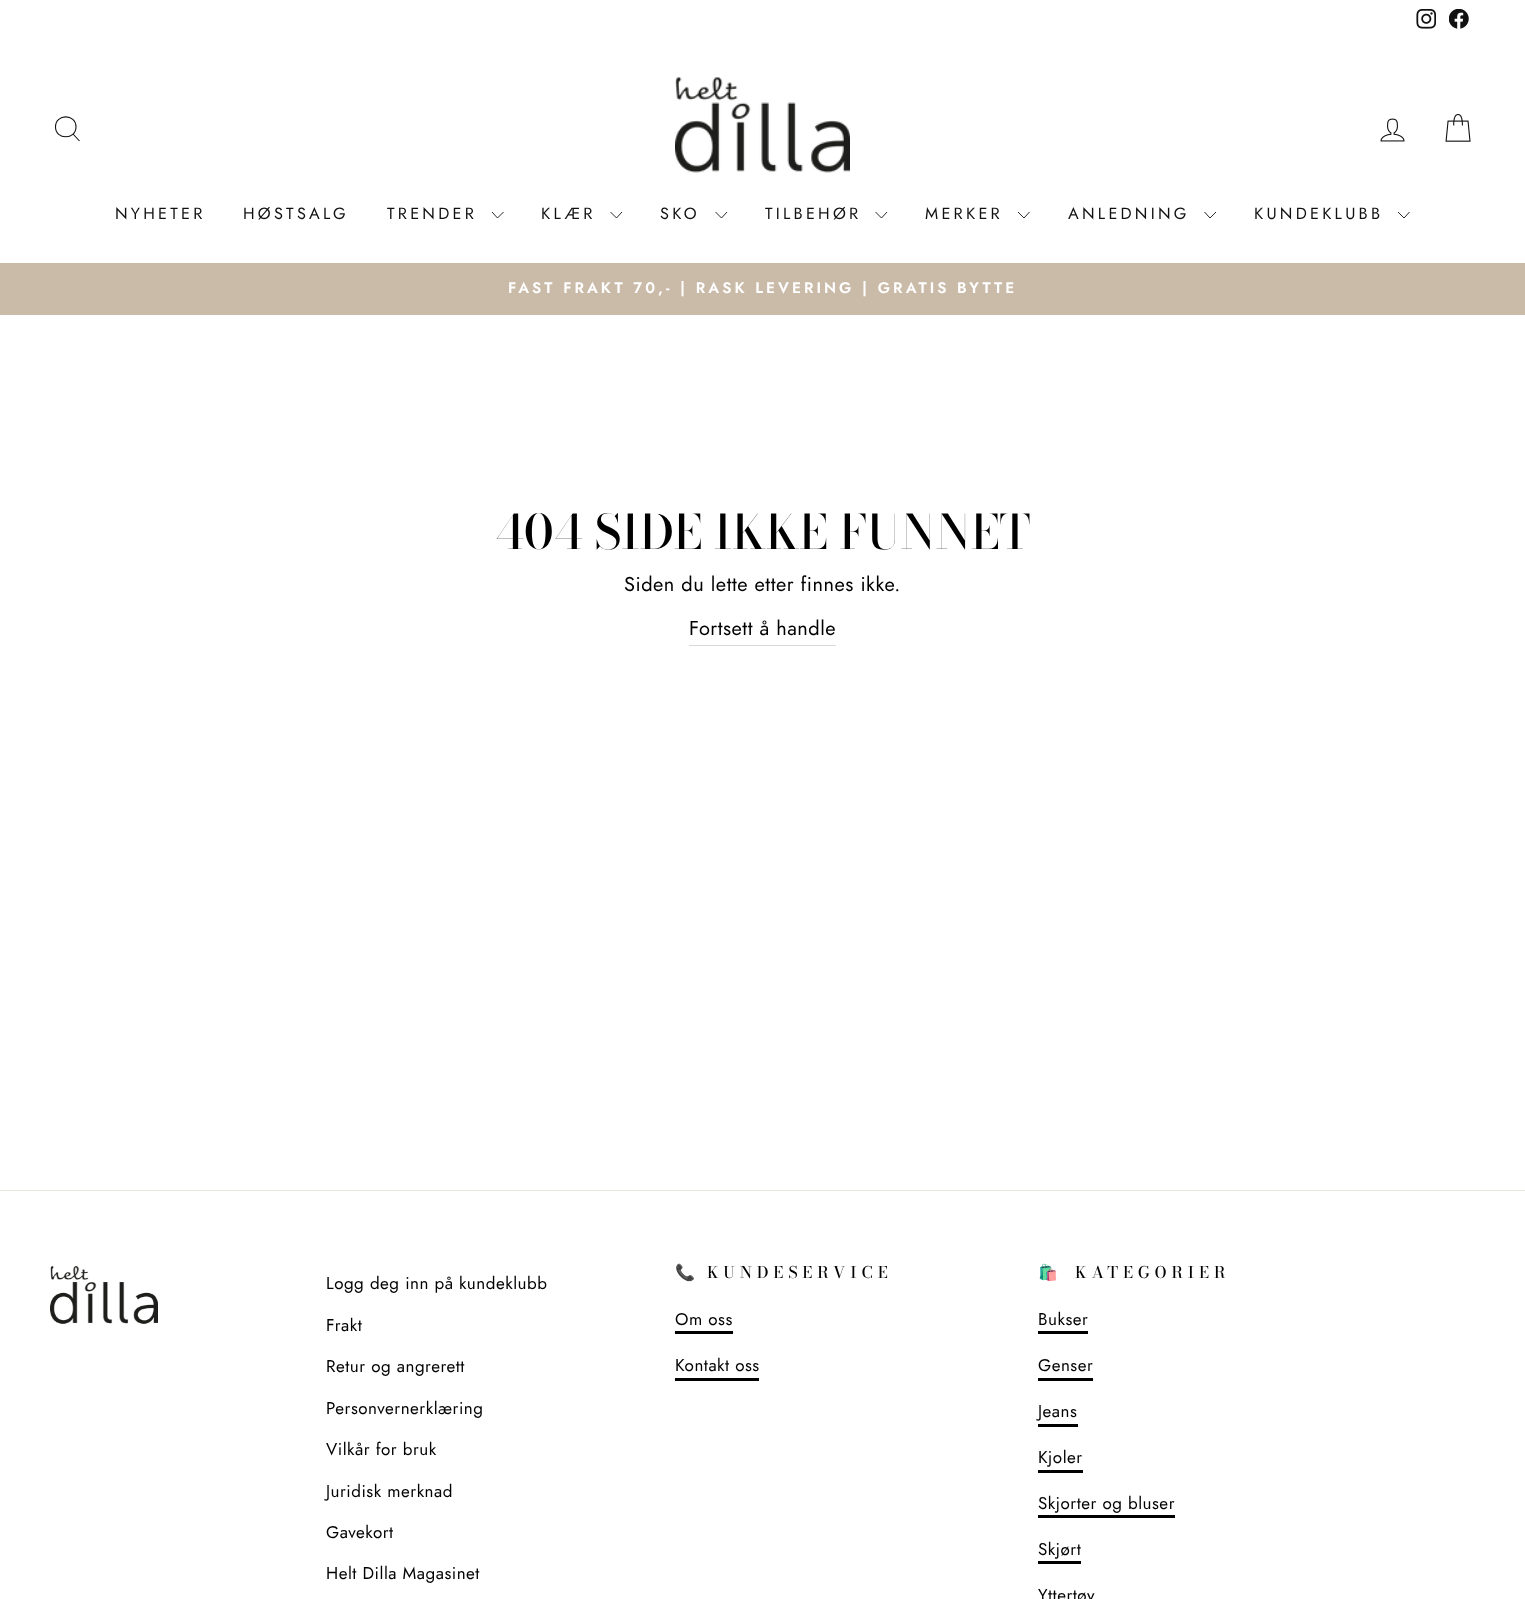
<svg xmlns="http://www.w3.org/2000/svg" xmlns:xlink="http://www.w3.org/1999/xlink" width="1525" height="1599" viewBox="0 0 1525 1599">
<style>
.cls-1{font:16.25px Jost;letter-spacing:3.25px;fill:#111111}
.cls-2{font:600 15.3px Jost;letter-spacing:3.05px;fill:#ffffff}
.cls-3{font:500 47.5px 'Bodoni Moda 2';fill:#000000}
.cls-4{font:20px Jost;letter-spacing:0.5px;fill:#000000}
.cls-5{font:17px Jost;letter-spacing:0.5px;fill:#000000}
.cls-6{font:16px Noto Color Emoji;letter-spacing:4.75px;fill:#000000}
.cls-7{font:500 16px Bodoni Moda;letter-spacing:4.75px;fill:#000000}
</style>
<rect width="100%" height="100%" fill="#ffffff"/>
<image xlink:href="image0.png" x="1416" y="9" width="20" height="20"/>
<image xlink:href="image1.png" x="1449" y="9" width="20" height="20"/>
<path fill="none" stroke="#111111" stroke-width="1.1" d="M76 127C76 140 55.5 140 55.5 127C55.5 113.5 76 113.5 76 127ZM79.5 141L73 134"/>
<image xlink:href="image2.png" x="675" y="77" width="175" height="96"/>
<image xlink:href="image3.png" x="1380" y="118" width="25" height="24"/>
<image xlink:href="image4.png" x="1445" y="114" width="26" height="28"/>
<path fill="none" stroke="#111111" stroke-width="0.9" d="M492 212L497.5 218L503.5 212"/>
<path fill="none" stroke="#111111" stroke-width="0.9" d="M610.5 212L616.5 218L622 212"/>
<path fill="none" stroke="#111111" stroke-width="0.9" d="M715.5 212L721.5 218L727 212"/>
<path fill="none" stroke="#111111" stroke-width="0.9" d="M875.5 212L881.5 218L887 212"/>
<path fill="none" stroke="#111111" stroke-width="0.9" d="M1018 212L1024 218L1029.5 212"/>
<path fill="none" stroke="#111111" stroke-width="0.9" d="M1204.5 212L1210 218L1216 212"/>
<path fill="none" stroke="#111111" stroke-width="0.9" d="M1398 212L1404 218L1409.5 212"/>
<rect fill="#cabaa8" x="0" y="263" width="1525" height="52"/>
<rect fill="#d9d9d9" x="689" y="645" width="147" height="1"/>
<rect fill="#e8e8e1" x="0" y="1190" width="1525" height="1"/>
<image xlink:href="image5.png" x="50" y="1266" width="108" height="58"/>
<rect fill="#000000" x="675" y="1331" width="58" height="3"/>
<rect fill="#000000" x="675" y="1378" width="84" height="3"/>
<rect fill="#000000" x="1038" y="1331" width="50" height="3"/>
<rect fill="#000000" x="1038" y="1378" width="55" height="3"/>
<rect fill="#000000" x="1038" y="1424" width="40" height="3"/>
<rect fill="#000000" x="1038" y="1470" width="45" height="3"/>
<rect fill="#000000" x="1038" y="1515" width="137" height="3"/>
<rect fill="#000000" x="1038" y="1561" width="43" height="3"/>
<text class="cls-1" x="115" y="219">NYHETER</text>
<text class="cls-1" x="243" y="219">HØSTSALG</text>
<text class="cls-1" x="387" y="219">TRENDER</text>
<text class="cls-1" x="541" y="219">KLÆR</text>
<text class="cls-1" x="660" y="219">SKO</text>
<text class="cls-1" x="765" y="219">TILBEHØR</text>
<text class="cls-1" x="925" y="219">MERKER</text>
<text class="cls-1" x="1068" y="219">ANLEDNING</text>
<text class="cls-1" x="1254" y="219">KUNDEKLUBB</text>
<text class="cls-2" x="508" y="293">FAST FRAKT 70,- | RASK LEVERING | GRATIS BYTTE</text>
<text class="cls-3" x="495" y="549">404 SIDE IKKE FUNNET</text>
<text class="cls-4" x="624" y="591">Siden du lette etter finnes ikke.</text>
<text class="cls-4" x="689" y="635">Fortsett å handle</text>
<text class="cls-5" x="326" y="1289">Logg deg inn på kundeklubb</text>
<text class="cls-5" x="326" y="1331">Frakt</text>
<text class="cls-5" x="326" y="1372">Retur og angrerett</text>
<text class="cls-5" x="326" y="1414">Personvernerklæring</text>
<text class="cls-5" x="326" y="1455">Vilkår for bruk</text>
<text class="cls-5" x="326" y="1497">Juridisk merknad</text>
<text class="cls-5" x="326" y="1538">Gavekort</text>
<text class="cls-5" x="326" y="1579">Helt Dilla Magasinet</text>
<text class="cls-6" x="675" y="1278">📞</text>
<text class="cls-7" x="707" y="1278">KUNDESERVICE</text>
<text class="cls-5" x="675" y="1325">Om oss</text>
<text class="cls-5" x="675" y="1371">Kontakt oss</text>
<text class="cls-6" x="1038" y="1278">🛍️</text>
<text class="cls-7" x="1075" y="1278">KATEGORIER</text>
<text class="cls-5" x="1038" y="1325">Bukser</text>
<text class="cls-5" x="1038" y="1371">Genser</text>
<text class="cls-5" x="1038" y="1417">Jeans</text>
<text class="cls-5" x="1038" y="1463">Kjoler</text>
<text class="cls-5" x="1038" y="1509">Skjorter og bluser</text>
<text class="cls-5" x="1038" y="1555">Skjørt</text>
<text class="cls-5" x="1038" y="1601">Yttertøy</text>
</svg>
